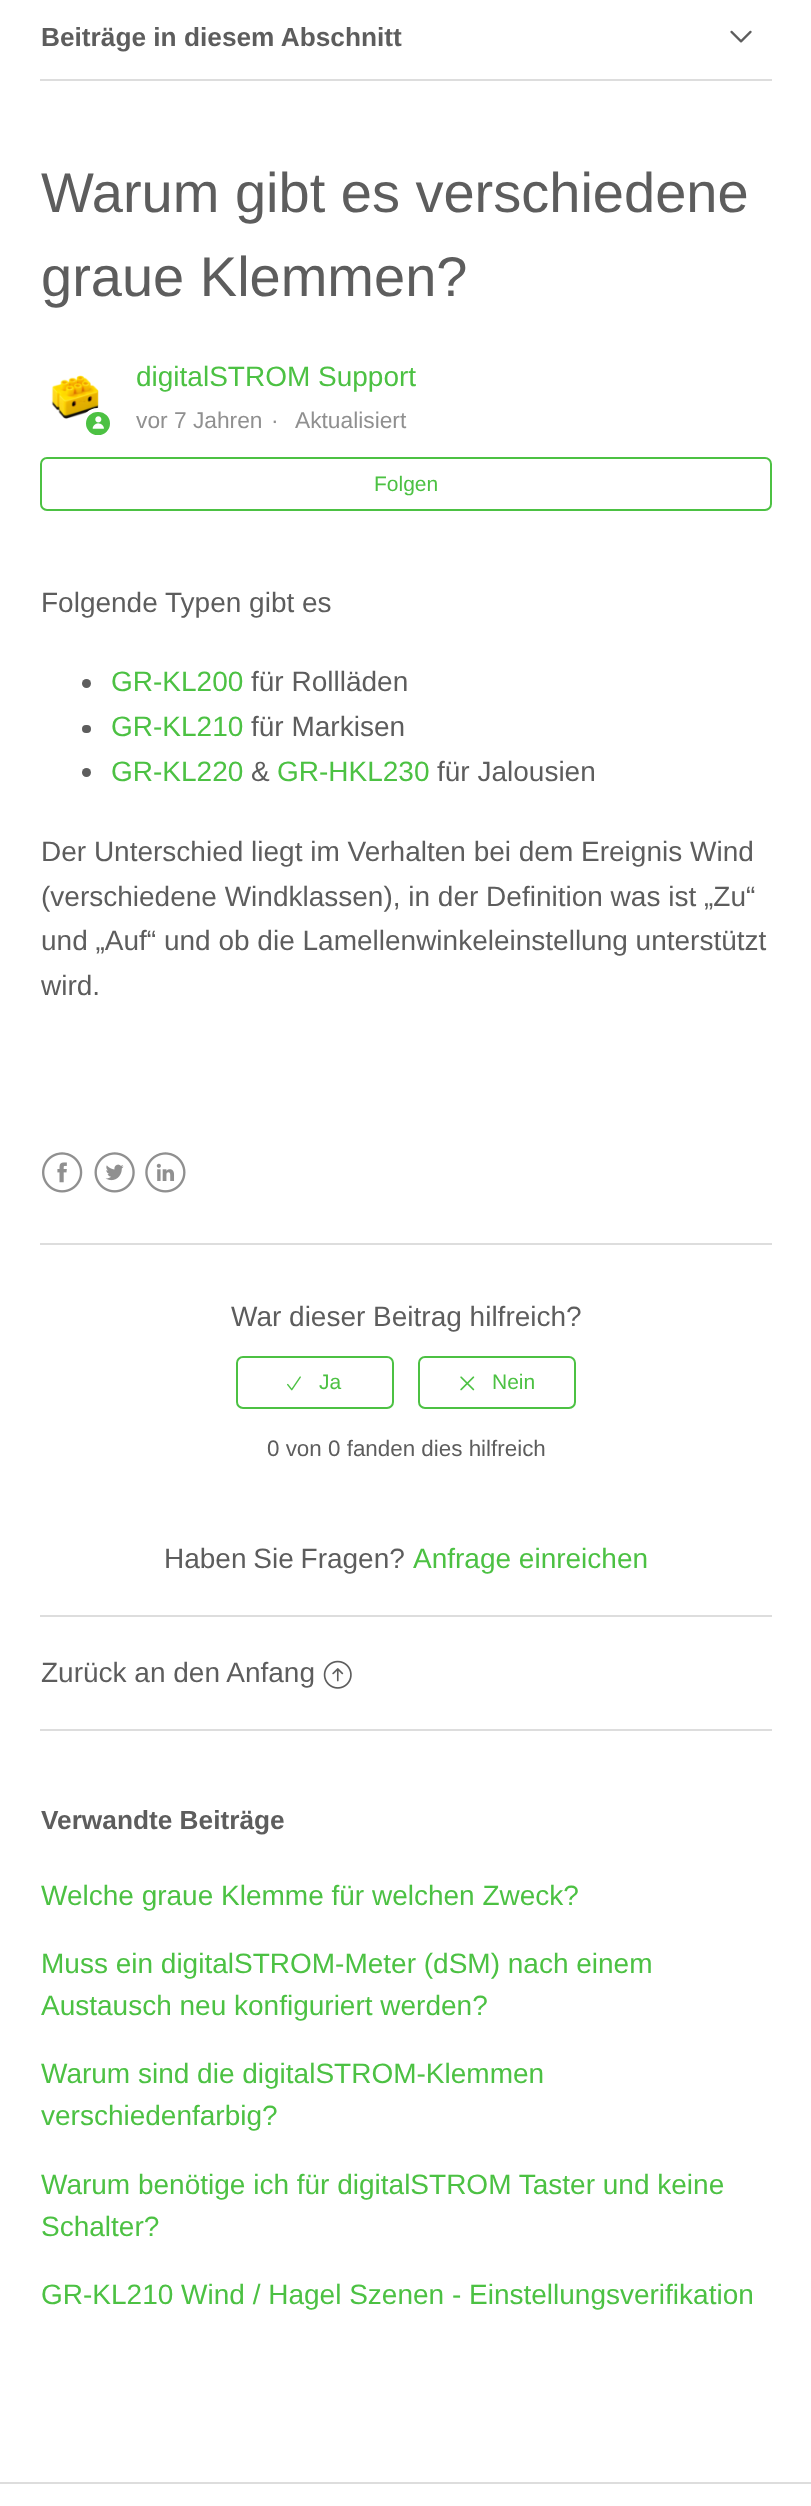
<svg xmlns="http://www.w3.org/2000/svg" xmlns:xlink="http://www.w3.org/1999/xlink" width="811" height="2506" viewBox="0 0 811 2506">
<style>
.cls-1{font:bold 26.25px Liberation Sans;fill:#5d5d5d}
.cls-2{font:56px Liberation Sans;fill:#5d5d5d}
.cls-3{font:28px Liberation Sans;fill:#4cc143}
.cls-4{font:22.75px Liberation Sans;fill:#909090}
.cls-5{font:21px Liberation Sans;fill:#4cc143}
.cls-6{font:28px Liberation Sans;fill:#5d5d5d}
.cls-7{font:22.4px Liberation Sans;fill:#5d5d5d}
</style>
<rect width="100%" height="100%" fill="#ffffff"/>
<rect fill="#dddddd" x="40" y="79" width="732" height="2"/>
<image xlink:href="image0.png" x="730" y="30" width="22" height="13"/>
<image xlink:href="image1.png" x="51" y="375" width="48" height="44"/>
<rect fill="#4cc143" stroke="#ffffff" stroke-width="4" x="84" y="410" width="28" height="27" rx="13.5"/>
<image xlink:href="image2.png" x="92" y="416" width="12" height="13"/>
<rect fill="none" stroke="#4cc143" stroke-width="2" x="41" y="458" width="730" height="52" rx="6"/>
<circle fill="#5d5d5d" cx="86.5" cy="683.5" r="4.5"/>
<rect fill="#5d5d5d" x="82" y="725" width="9" height="8" rx="4"/>
<circle fill="#5d5d5d" cx="86.5" cy="772.5" r="4.5"/>
<image xlink:href="image3.png" x="42" y="1152" width="41" height="41"/>
<image xlink:href="image4.png" x="94" y="1152" width="41" height="41"/>
<image xlink:href="image5.png" x="145" y="1152" width="41" height="41"/>
<rect fill="#dddddd" x="40" y="1243" width="732" height="2"/>
<rect fill="none" stroke="#4cc143" stroke-width="2" x="237" y="1357" width="156" height="51" rx="6"/>
<image xlink:href="image6.png" x="287" y="1376" width="14" height="15"/>
<rect fill="none" stroke="#4cc143" stroke-width="2" x="419" y="1357" width="156" height="51" rx="6"/>
<image xlink:href="image7.png" x="460" y="1376" width="15" height="15"/>
<rect fill="#dddddd" x="40" y="1615" width="732" height="2"/>
<image xlink:href="image8.png" x="323" y="1660" width="29" height="29"/>
<rect fill="#dddddd" x="40" y="1729" width="732" height="2"/>
<rect fill="#dddddd" x="0" y="2482" width="811" height="2"/>
<text class="cls-1" x="41" y="46">Beiträge in diesem Abschnitt</text>
<text class="cls-2"><tspan x="41" y="212">Warum gibt es verschiedene</tspan><tspan x="41" y="296">graue Klemmen?</tspan></text>
<text class="cls-3" x="136" y="386">digitalSTROM Support</text>
<text class="cls-4" x="136" y="428">vor 7 Jahren</text>
<text class="cls-4" x="271" y="428">·</text>
<text class="cls-4" x="295" y="428">Aktualisiert</text>
<text class="cls-5" x="374" y="491">Folgen</text>
<text class="cls-6" x="41" y="612">Folgende Typen gibt es</text>
<text class="cls-3" x="111" y="691">GR-KL200</text>
<text class="cls-6" x="251" y="691">für Rollläden</text>
<text class="cls-3" x="111" y="736">GR-KL210</text>
<text class="cls-6" x="251" y="736">für Markisen</text>
<text class="cls-3" x="111" y="781">GR-KL220</text>
<text class="cls-6" x="251" y="781">&amp;</text>
<text class="cls-3" x="277" y="781">GR-HKL230</text>
<text class="cls-6" x="437" y="781">für Jalousien</text>
<text class="cls-6"><tspan x="41" y="861">Der Unterschied liegt im Verhalten bei dem Ereignis Wind</tspan><tspan x="41" y="906">(verschiedene Windklassen), in der Definition was ist „Zu“</tspan><tspan x="41" y="950">und „Auf“ und ob die Lamellenwinkeleinstellung unterstützt</tspan><tspan x="41" y="995">wird.</tspan></text>
<text class="cls-6" x="231" y="1326">War dieser Beitrag hilfreich?</text>
<text class="cls-5" x="319" y="1389">Ja</text>
<text class="cls-5" x="492" y="1389">Nein</text>
<text class="cls-7" x="267" y="1456">0 von 0 fanden dies hilfreich</text>
<text class="cls-6" x="164" y="1568" word-spacing="-1">Haben Sie Fragen?</text>
<text class="cls-3" x="413" y="1568">Anfrage einreichen</text>
<text class="cls-6" x="41" y="1682">Zurück an den Anfang</text>
<text class="cls-1" x="41" y="1829">Verwandte Beiträge</text>
<text class="cls-3" x="41" y="1905">Welche graue Klemme für welchen Zweck?</text>
<text class="cls-3"><tspan x="41" y="1973">Muss ein digitalSTROM-Meter (dSM) nach einem</tspan><tspan x="41" y="2015">Austausch neu konfiguriert werden?</tspan></text>
<text class="cls-3"><tspan x="41" y="2083">Warum sind die digitalSTROM-Klemmen</tspan><tspan x="41" y="2125">verschiedenfarbig?</tspan></text>
<text class="cls-3"><tspan x="41" y="2194">Warum benötige ich für digitalSTROM Taster und keine</tspan><tspan x="41" y="2236">Schalter?</tspan></text>
<text class="cls-3" x="41" y="2304">GR-KL210 Wind / Hagel Szenen - Einstellungsverifikation</text>
</svg>
